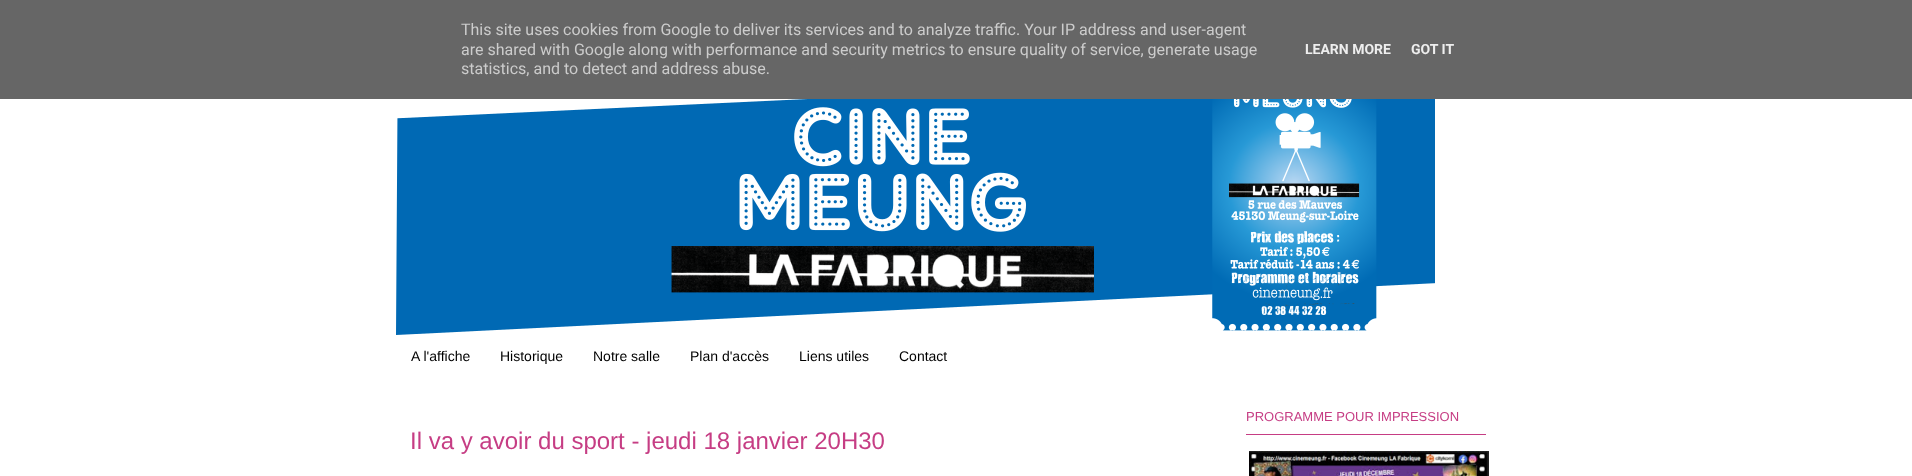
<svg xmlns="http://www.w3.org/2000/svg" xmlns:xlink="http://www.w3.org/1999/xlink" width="1912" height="476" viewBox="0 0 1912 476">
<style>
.cls-1{font:16px Roboto;fill:#cccccc}
.cls-2{font:bold 14px Roboto;fill:#eeeeee}
.cls-3{font:14px Liberation Sans;fill:#000000}
.cls-4{font:13px Liberation Sans;fill:#c63d84}
.cls-5{font:24px Liberation Sans;fill:#c63d84}
</style>
<rect width="100%" height="100%" fill="#ffffff"/>
<rect fill="#666666" x="0" y="0" width="1912" height="99"/>
<image xlink:href="image0.png" x="396" y="99" width="1039" height="236"/>
<rect fill="#c63d84" x="1246" y="434" width="240" height="1"/>
<image xlink:href="image1.png" x="1249" y="451" width="240" height="25"/>
<text class="cls-1"><tspan x="461" y="35">This site uses cookies from Google to deliver its services and to analyze traffic. Your IP address and user-agent</tspan><tspan x="461" y="55">are shared with Google along with performance and security metrics to ensure quality of service, generate usage</tspan><tspan x="461" y="74">statistics, and to detect and address abuse.</tspan></text>
<text class="cls-2" x="1305" y="54">LEARN MORE</text>
<text class="cls-2" x="1411" y="54">GOT IT</text>
<text class="cls-3" x="411" y="361">A l'affiche</text>
<text class="cls-3" x="500" y="361">Historique</text>
<text class="cls-3" x="593" y="361">Notre salle</text>
<text class="cls-3" x="690" y="361">Plan d'accès</text>
<text class="cls-3" x="799" y="361">Liens utiles</text>
<text class="cls-3" x="899" y="361">Contact</text>
<text class="cls-4" x="1246" y="421">PROGRAMME POUR IMPRESSION</text>
<text class="cls-5" x="410" y="449">Il va y avoir du sport - jeudi 18 janvier 20H30</text>
</svg>
